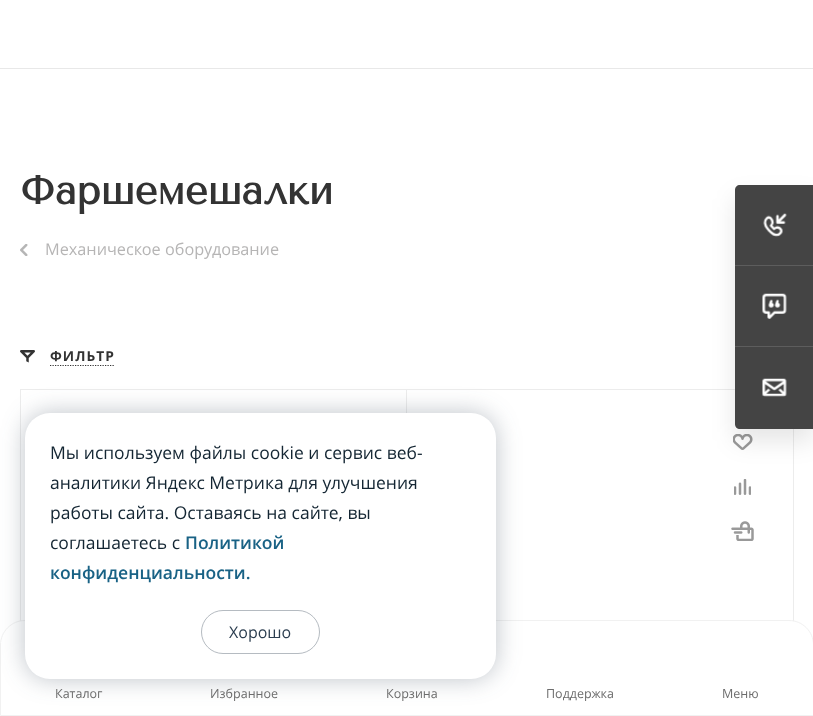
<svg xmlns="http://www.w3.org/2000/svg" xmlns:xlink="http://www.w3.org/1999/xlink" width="813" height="716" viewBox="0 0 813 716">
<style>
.cls-1{font:bold 40px Tenor Sans;fill:#333333}
.cls-2{font:16.25px Open Sans;fill:#b6b5b5}
.cls-3{font:bold 13.75px Open Sans;letter-spacing:1px;fill:#333333}
.cls-4{font:12.5px Open Sans;fill:#6d6d6d}
.cls-5{font:17.5px Open Sans;fill:#142633}
.cls-6{font:600 17.5px Open Sans;fill:#196285}
.cls-7{font:16px Open Sans;fill:#2c3e50}
</style>
<rect width="100%" height="100%" fill="#ffffff"/>
<rect fill="none" stroke="#ececec" x="20.5" y="389.5" width="387" height="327"/>
<rect fill="#ffffff" x="407" y="390" width="1" height="231"/>
<rect fill="none" stroke="#ececec" x="406.5" y="389.5" width="387" height="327"/>
<image xlink:href="image5.png" x="733" y="434" width="20" height="16"/>
<image xlink:href="image6.png" x="734" y="479" width="17" height="16"/>
<rect fill="#000000" fill-opacity="0.1" filter="blur(12.5px)" x="735" y="198" width="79" height="243" rx="5"/>
<path fill="#444444" d="M740 185H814V429H740C737 429 735 427 735 424V190C735 187 737 185 740 185Z"/>
<rect fill="#5d5d5d" x="735" y="265" width="78" height="1"/>
<image xlink:href="image0.png" x="763" y="213" width="24" height="24"/>
<rect fill="#5d5d5d" x="735" y="346" width="78" height="1"/>
<image xlink:href="image1.png" x="762" y="293" width="25" height="26"/>
<image xlink:href="image2.png" x="762" y="378" width="25" height="19"/>
<image xlink:href="image3.png" x="20" y="244" width="8" height="12"/>
<image xlink:href="image4.png" x="20" y="350" width="15" height="13"/>
<path fill="none" stroke="#333333" stroke-width="1.2" stroke-dasharray="1.25 1.25" d="M50 365.5H115"/>
<image xlink:href="image7.png" x="731" y="521" width="23" height="20"/>
<rect fill="#e8e8e8" x="0" y="68" width="813" height="1"/>
<path fill="#ffffff" stroke="#f1f1f1" d="M25 620.5H789C802.5 620.5 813.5 631.5 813.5 645V715.5H.5V645C.5 631.5 11.5 620.5 25 620.5Z"/>
<rect fill="#2c3e50" fill-opacity="0.31" filter="blur(12.5px)" x="25" y="413" width="471" height="266" rx="25"/>
<rect fill="#ffffff" x="25" y="413" width="471" height="266" rx="25"/>
<rect fill="none" stroke="#b5bbc1" x="201.5" y="610.5" width="118" height="43" rx="21.5"/>
<text class="cls-1" x="20" y="204">Фаршемешалки</text>
<text class="cls-2" x="45" y="255">Механическое оборудование</text>
<text class="cls-3" x="50" y="361">ФИЛЬТР</text>
<text class="cls-4" x="55" y="698">Каталог</text>
<text class="cls-4" x="210" y="698">Избранное</text>
<text class="cls-4" x="386" y="698">Корзина</text>
<text class="cls-4" x="546" y="698">Поддержка</text>
<text class="cls-4" x="722" y="698">Меню</text>
<text class="cls-5"><tspan x="50" y="459">Мы используем файлы cookie и сервис веб-</tspan><tspan x="50" y="489">аналитики Яндекс Метрика для улучшения</tspan><tspan x="50" y="519">работы сайта. Оставаясь на сайте, вы</tspan><tspan x="50" y="549">соглашаетесь с</tspan></text>
<text class="cls-6" x="185" y="549">Политикой</text>
<text class="cls-6" x="50" y="579">конфиденциальности.</text>
<text class="cls-7" x="229" y="638">Хорошо</text>
</svg>
